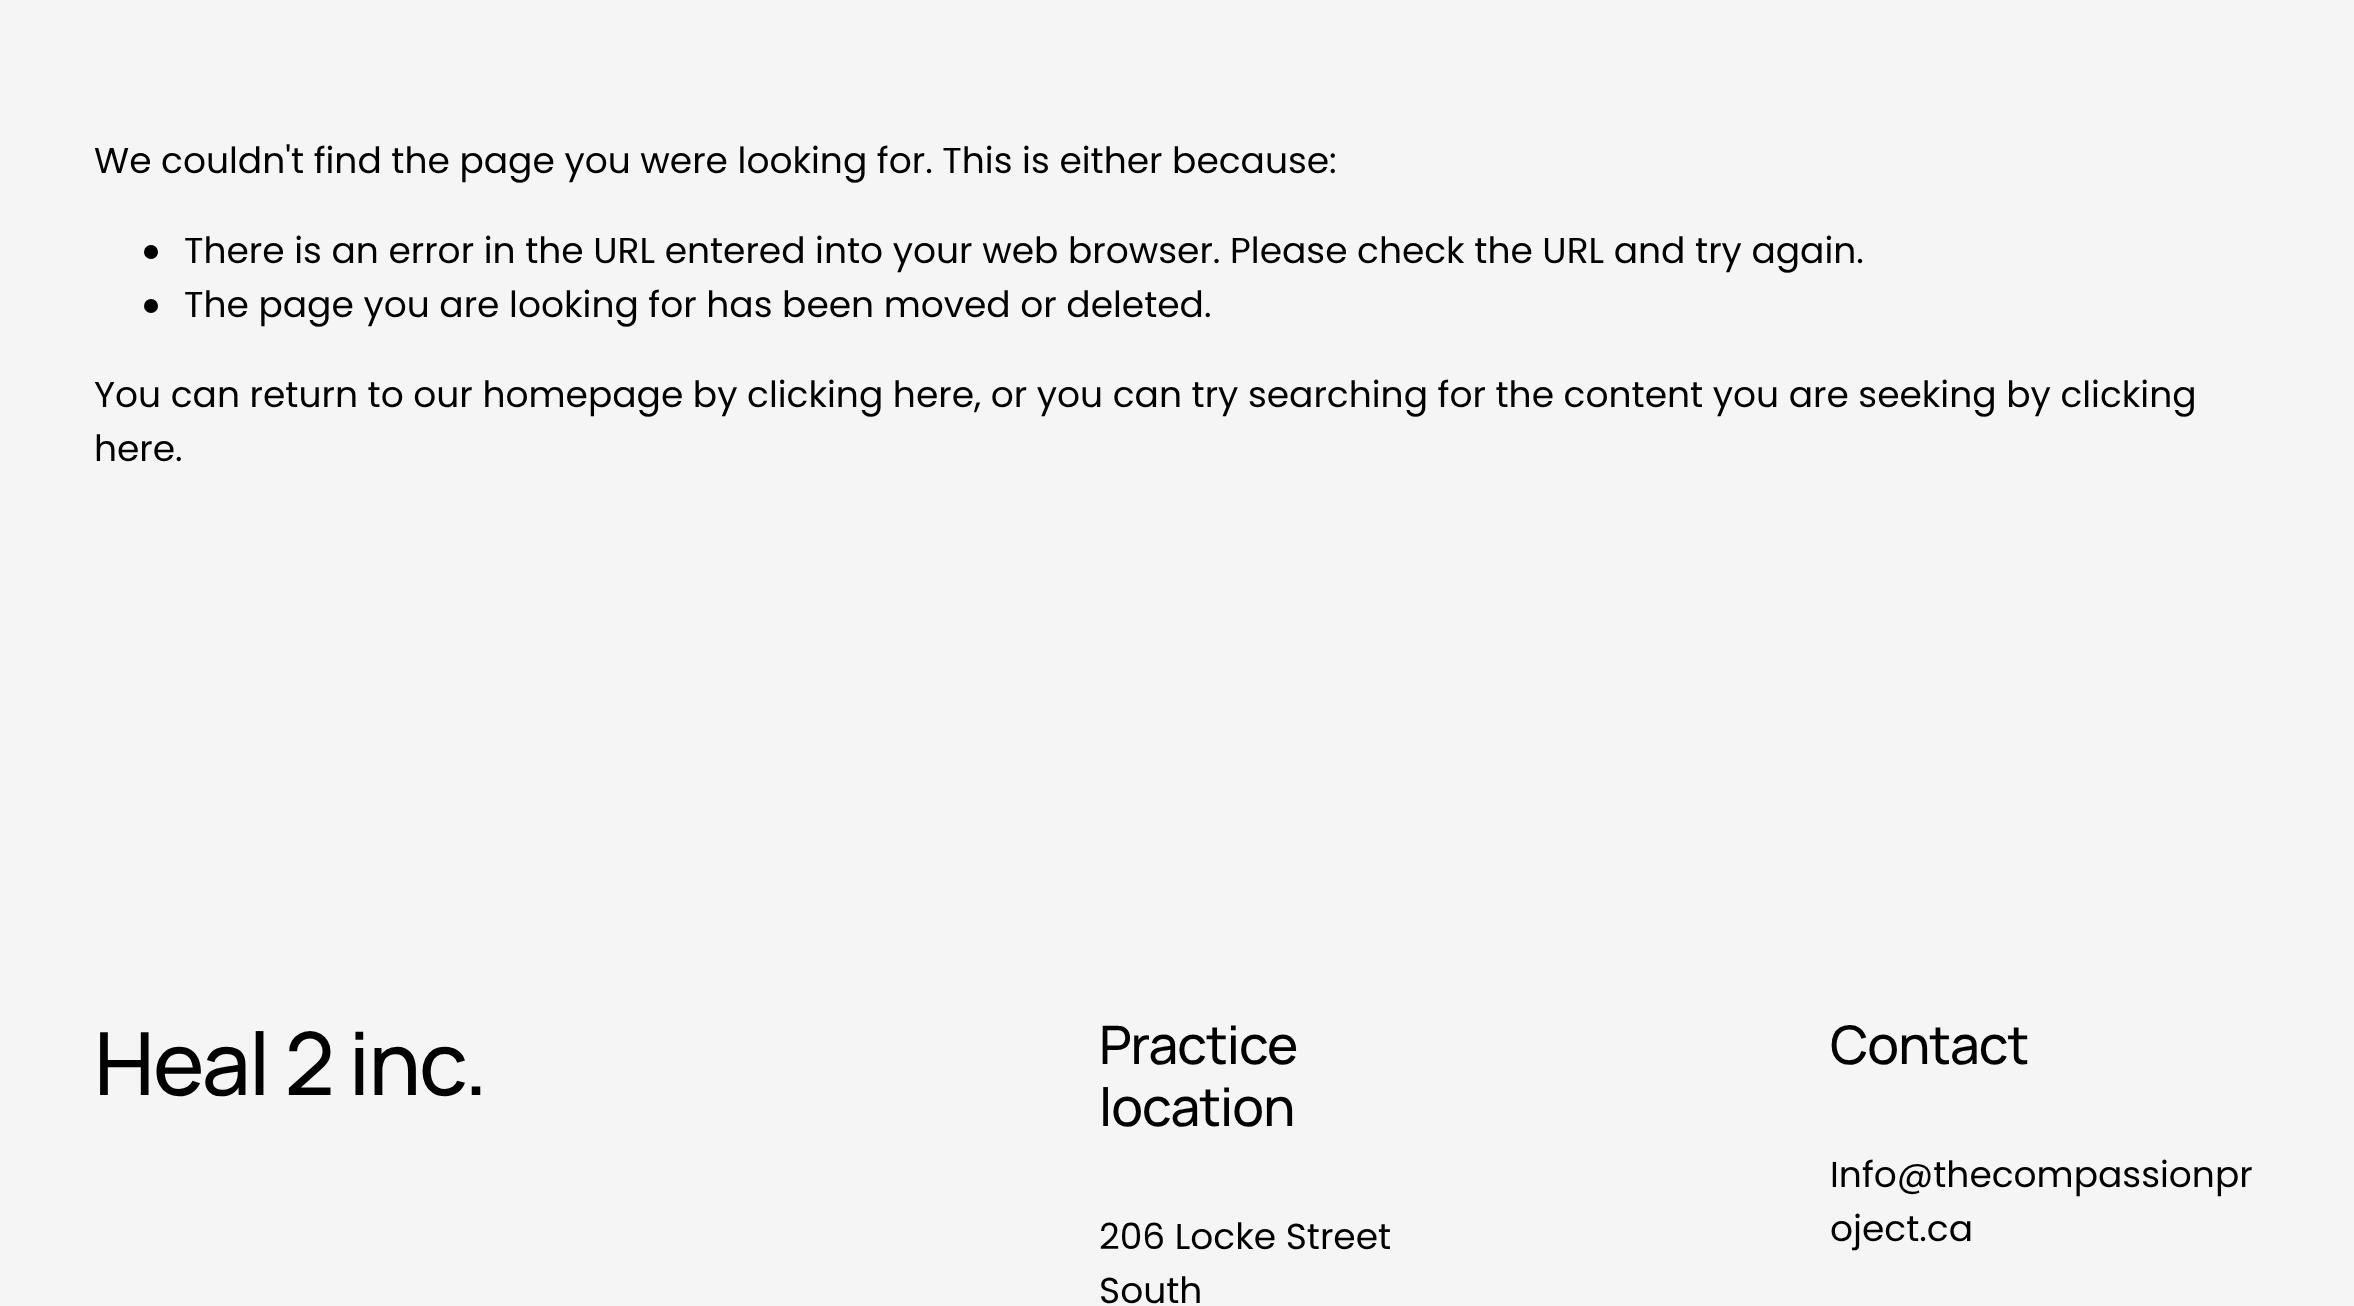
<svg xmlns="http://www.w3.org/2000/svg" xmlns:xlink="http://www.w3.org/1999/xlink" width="2354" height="1306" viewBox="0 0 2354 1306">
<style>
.cls-1{font:36px Poppins;fill:#000000}
.cls-2{font:500 87px Manrope;letter-spacing:-1.75px;fill:#000000}
.cls-3{font:500 53px Manrope;letter-spacing:-1px;fill:#000000}
</style>
<rect width="100%" height="100%" fill="#f5f5f5"/>
<circle fill="#000000" cx="151" cy="252" r="7"/>
<circle fill="#000000" cx="151" cy="306" r="7"/>
<text class="cls-1" x="94" y="173">We couldn't find the page you were looking for. This is either because:</text>
<text class="cls-1"><tspan x="184" y="263">There is an error in the URL entered into your web browser. Please check the URL and try again.</tspan><tspan x="184" y="317">The page you are looking for has been moved or deleted.</tspan></text>
<text class="cls-1"><tspan x="94" y="407">You can return to our homepage by clicking here, or you can try searching for the content you are seeking by clicking</tspan><tspan x="94" y="461">here.</tspan></text>
<text class="cls-2" x="94" y="1095">Heal 2 inc.</text>
<text class="cls-3"><tspan x="1099" y="1064">Practice</tspan><tspan x="1099" y="1126">location</tspan></text>
<text class="cls-1"><tspan x="1099" y="1249">206 Locke Street</tspan><tspan x="1099" y="1303">South</tspan></text>
<text class="cls-3" x="1830" y="1064">Contact</text>
<text class="cls-1"><tspan x="1830" y="1187">Info@thecompassionpr</tspan><tspan x="1830" y="1241">oject.ca</tspan></text>
</svg>
